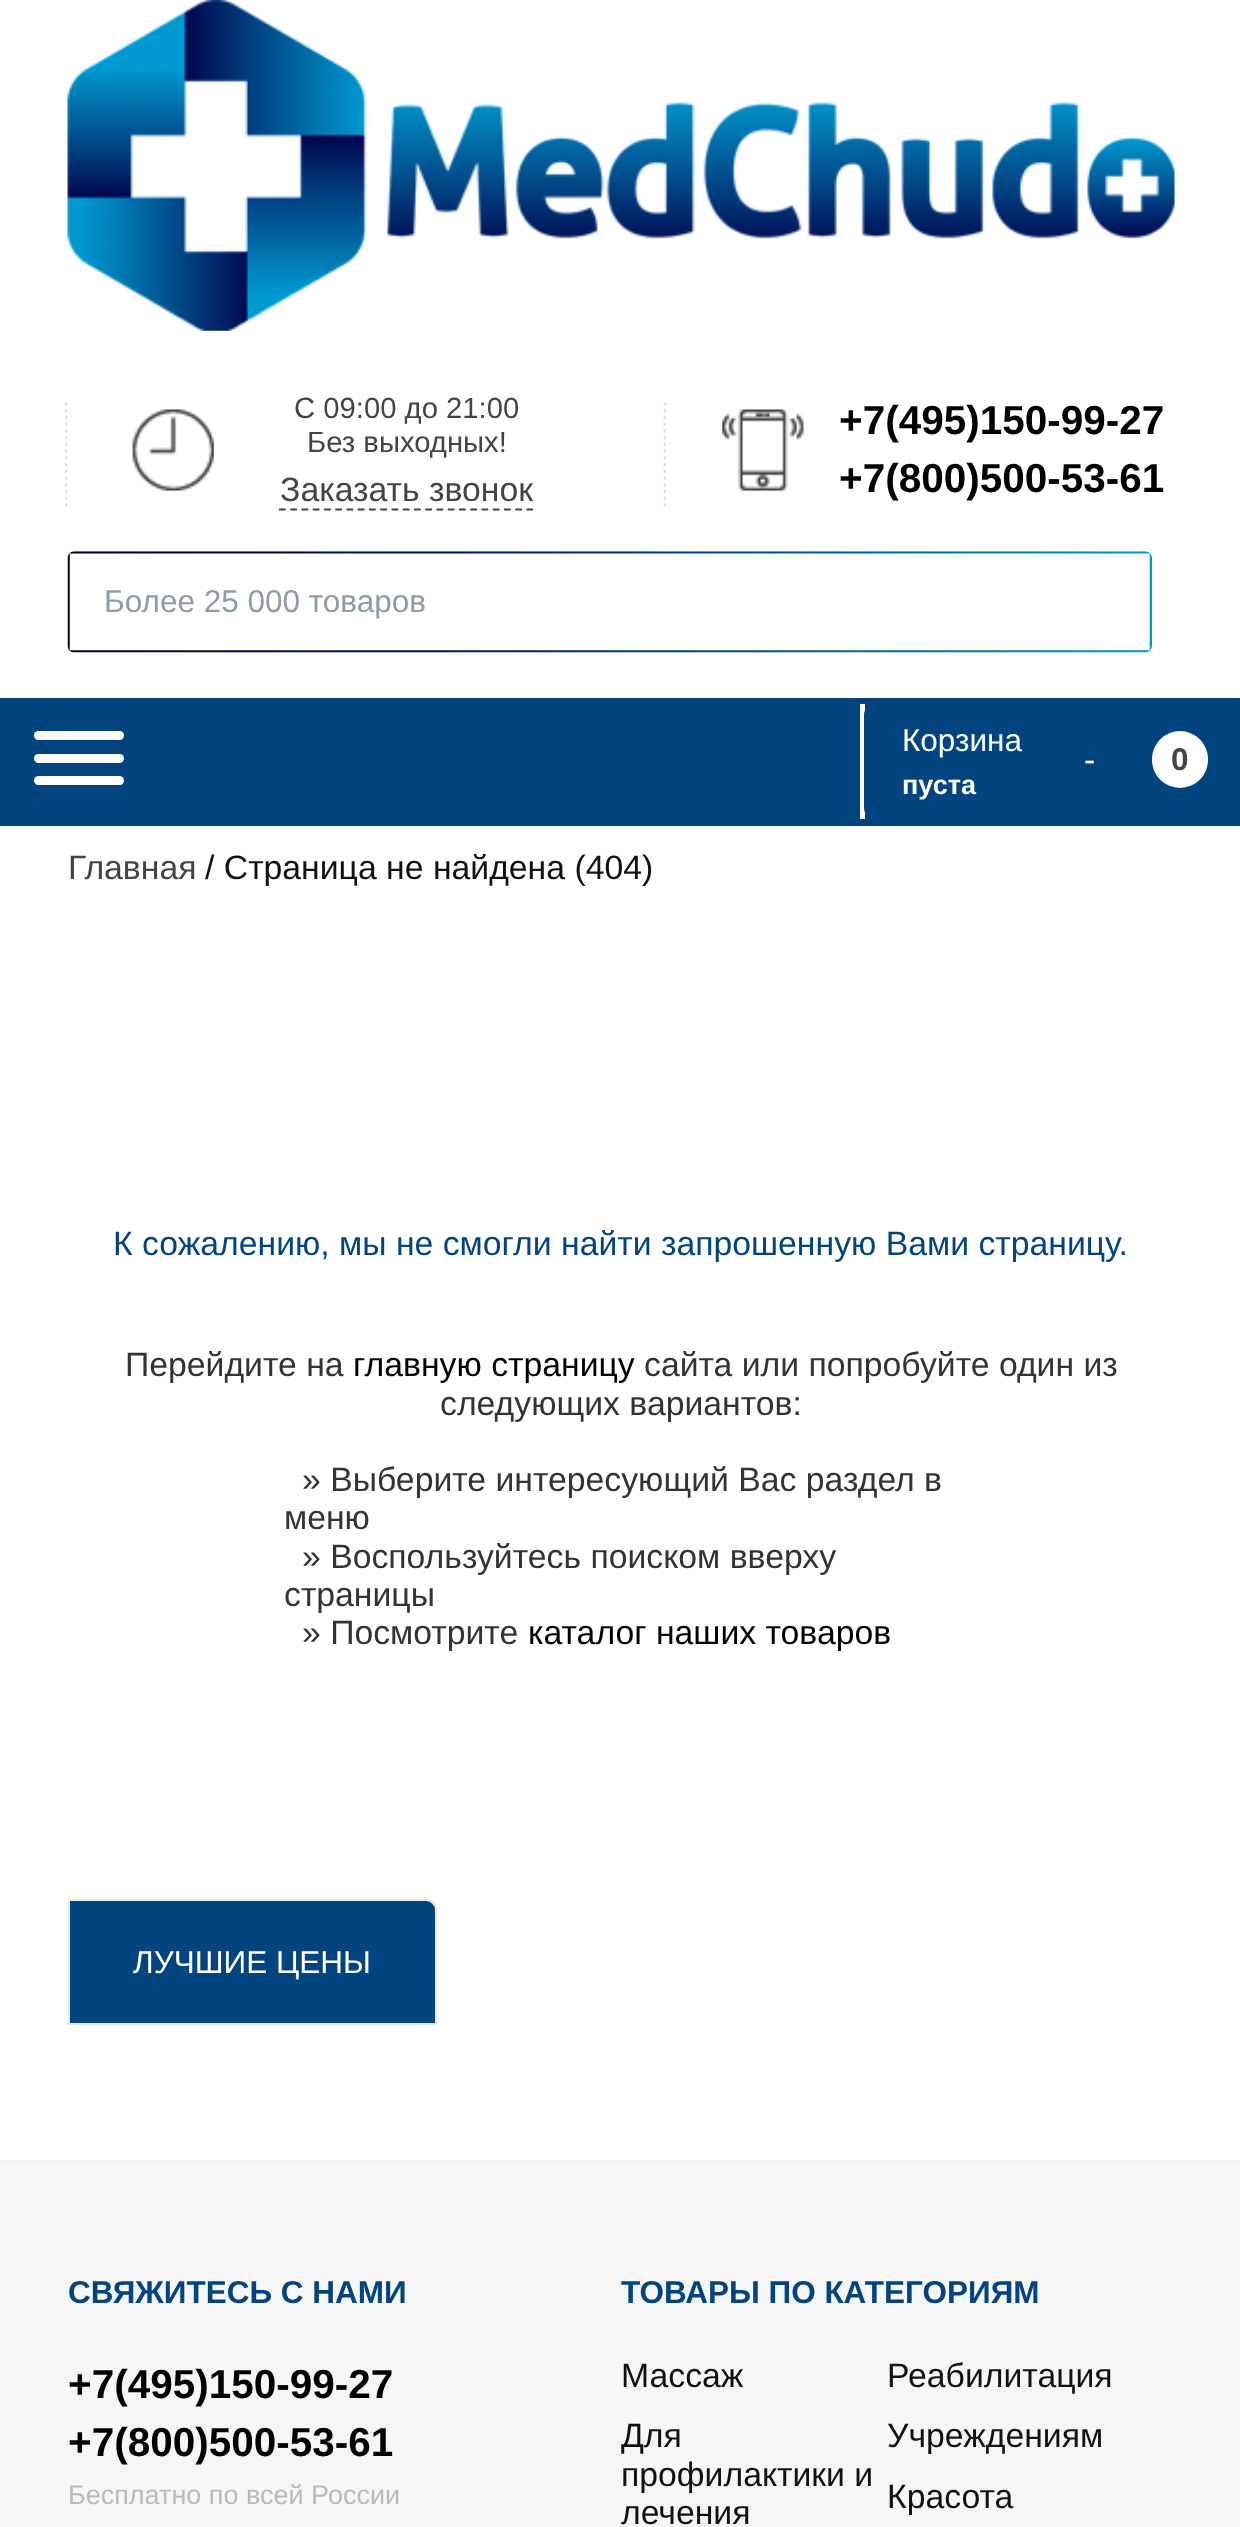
<svg xmlns="http://www.w3.org/2000/svg" xmlns:xlink="http://www.w3.org/1999/xlink" width="1240" height="2527" viewBox="0 0 1240 2527">
<style>
.cls-1{font:29.25px Liberation Sans;fill:#444444}
.cls-2{font:33.75px Liberation Sans;fill:#444444}
.cls-3{font:bold 40.5px Liberation Sans;fill:#000000}
.cls-4{font:31.5px Liberation Sans;fill:#8e9ca5}
.cls-5{font:31.5px Liberation Sans;fill:#ffffff}
.cls-6{font:33.75px Liberation Sans;fill:#ffffff}
.cls-7{font:bold 31.5px Liberation Sans;fill:#444444}
.cls-8{font:bold 27px Liberation Sans;fill:#ffffff}
.cls-9{font:33.75px Liberation Sans;fill:#111111}
.cls-10{font:33.75px Liberation Sans;fill:#02447f}
.cls-11{font:33.75px Liberation Sans;fill:#333333}
.cls-12{font:33.75px Liberation Sans;fill:#000000}
.cls-13{font:bold 31.5px Liberation Sans;fill:#02447f}
.cls-14{font:27px Liberation Sans;fill:#bababa}
</style>
<rect width="100%" height="100%" fill="#ffffff"/>
<image xlink:href="image0.png" x="67" y="0" width="1108" height="331"/>
<image xlink:href="image1.png" x="65" y="402" width="3" height="105"/>
<image xlink:href="image2.png" x="132" y="409" width="82" height="83"/>
<path fill="none" stroke="#444444" stroke-width="2.2" stroke-dasharray="6.75 4.5" d="M279 509.5H533"/>
<image xlink:href="image3.png" x="663" y="402" width="3" height="105"/>
<image xlink:href="image4.png" x="722" y="409" width="82" height="83"/>
<image xlink:href="image5.png" x="67" y="551" width="1085" height="102"/>
<rect fill="#02447f" x="0" y="698" width="1240" height="128"/>
<rect fill="#ffffff" x="34" y="754" width="90" height="9" rx="4.5"/>
<rect fill="#ffffff" x="34" y="731" width="90" height="9" rx="4.5"/>
<rect fill="#ffffff" x="34" y="776" width="90" height="9" rx="4.5"/>
<rect fill="#ffffff" x="860" y="704" width="5" height="115"/>
<rect fill="#02447f" stroke="#02447f" stroke-width="2" x="865" y="705" width="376" height="113" rx="10"/>
<rect fill="#ffffff" x="1152" y="731" width="56" height="57" rx="28"/>
<path fill="#02447f" stroke="#e7e9eb" stroke-width="2" d="M69 1900H426C431.5 1900 436 1904.5 436 1910V2024H69Z"/>
<rect fill="#f6f6f7" x="0" y="2162" width="1240" height="365"/>
<rect fill="#f2f2f2" x="0" y="2160" width="1240" height="2"/>
<text class="cls-1" x="294" y="418">C 09:00 до 21:00</text>
<text class="cls-1" x="307" y="452">Без выходных!</text>
<text class="cls-2" x="280" y="501">Заказать звонок</text>
<text class="cls-3"><tspan x="839" y="434">+7(495)150-99-27</tspan><tspan x="839" y="492">+7(800)500-53-61</tspan></text>
<text class="cls-4" x="104" y="612">Более 25 000 товаров</text>
<text class="cls-5" x="902" y="751">Корзина</text>
<text class="cls-6" x="1084" y="771">-</text>
<text class="cls-7" x="1171" y="770">0</text>
<text class="cls-8" x="902" y="794">пуста</text>
<text class="cls-2" x="68" y="879">Главная</text>
<text class="cls-9" x="205" y="879">/ Страница не найдена (404)</text>
<text class="cls-10" x="113" y="1255">К сожалению, мы не смогли найти запрошенную Вами страницу.</text>
<text class="cls-11" x="125" y="1376">Перейдите на</text>
<text class="cls-12" x="353" y="1376">главную страницу</text>
<text class="cls-11" x="644" y="1376">сайта или попробуйте один из</text>
<text class="cls-11" x="440" y="1415">следующих вариантов:</text>
<text class="cls-11" x="302" y="1491">» Выберите интересующий Вас раздел в</text>
<text class="cls-11" x="284" y="1529">меню</text>
<text class="cls-11" x="302" y="1568">» Воспользуйтесь поиском вверху</text>
<text class="cls-11" x="284" y="1606">страницы</text>
<text class="cls-11" x="302" y="1644">» Посмотрите</text>
<text class="cls-12" x="528" y="1644">каталог наших товаров</text>
<text class="cls-5" x="133" y="1973">ЛУЧШИЕ ЦЕНЫ</text>
<text class="cls-13" x="68" y="2303">СВЯЖИТЕСЬ С НАМИ</text>
<text class="cls-3"><tspan x="68" y="2398">+7(495)150-99-27</tspan><tspan x="68" y="2456">+7(800)500-53-61</tspan></text>
<text class="cls-14" x="68" y="2504">Бесплатно по всей России</text>
<text class="cls-13" x="621" y="2303">ТОВАРЫ ПО КАТЕГОРИЯМ</text>
<text class="cls-9" x="621" y="2387">Массаж</text>
<text class="cls-9" x="887" y="2387">Реабилитация</text>
<text class="cls-9"><tspan x="621" y="2447">Для</tspan><tspan x="621" y="2486">профилактики и</tspan><tspan x="621" y="2524">лечения</tspan></text>
<text class="cls-9"><tspan x="887" y="2447">Учреждениям</tspan><tspan x="887" y="2508">Красота</tspan></text>
</svg>
